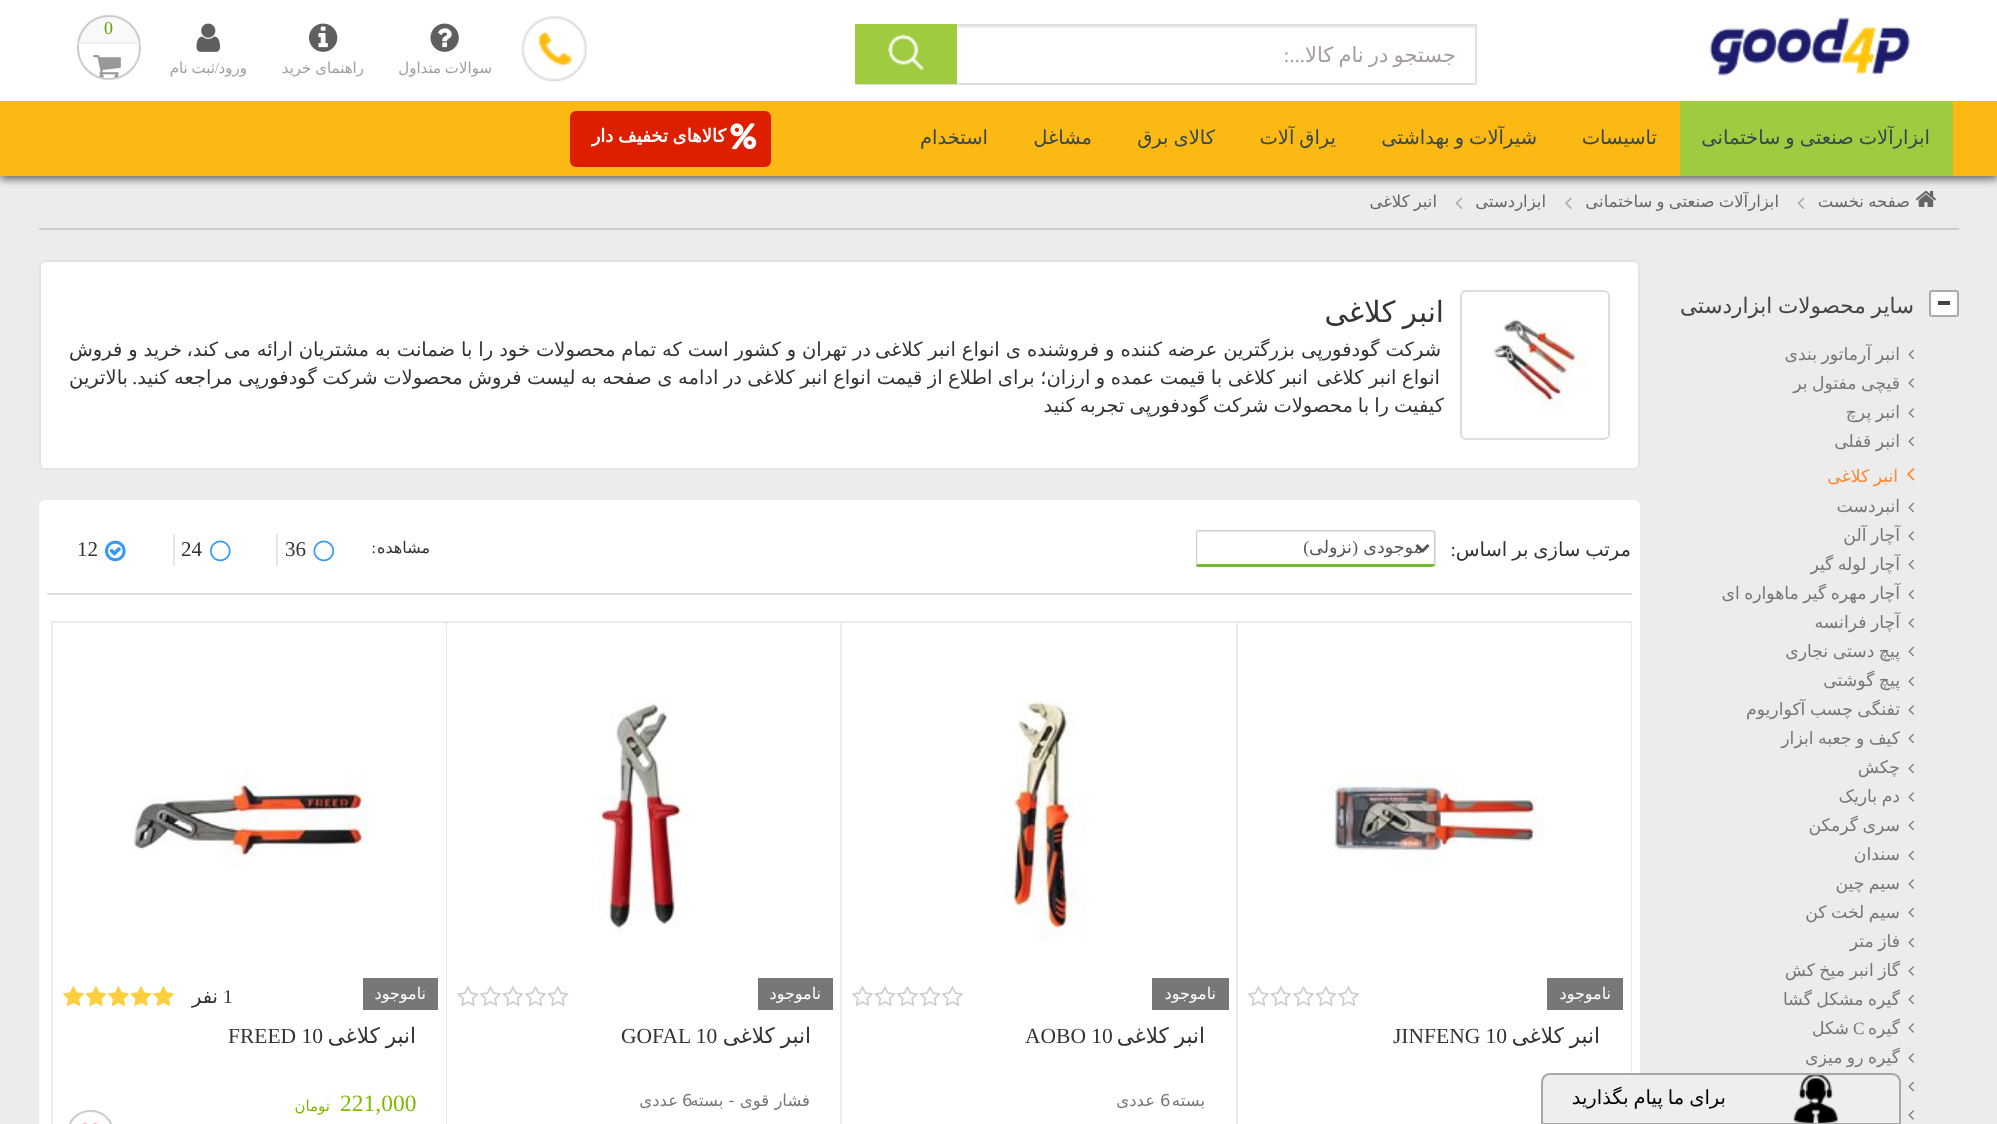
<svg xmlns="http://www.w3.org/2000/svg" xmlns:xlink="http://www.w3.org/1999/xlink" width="1997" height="1124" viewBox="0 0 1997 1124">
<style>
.cls-1{font:21px DejaVu Sans;direction:rtl;fill:#a69d9d}
.cls-2{font:21px Liberation Serif;direction:rtl;fill:#a69d9d}
.cls-3{font:18px Liberation Serif;fill:#5da500}
.cls-4{font:15px DejaVu Sans;direction:rtl;fill:#a0a0a0}
.cls-5{font:15px Liberation Serif;direction:rtl;fill:#a0a0a0}
.cls-6{font:19.5px DejaVu Sans;direction:rtl;fill:#36474e}
.cls-7{font:bold 18px DejaVu Sans;direction:rtl;fill:#ffffff}
.cls-8{font:16.5px DejaVu Sans;direction:rtl;fill:#666666}
.cls-9{font:21.5px DejaVu Sans;direction:rtl;fill:#444444}
.cls-10{font:17.25px DejaVu Sans;direction:rtl;fill:#777777}
.cls-11{font:17.25px DejaVu Sans;direction:rtl;fill:#ff8831}
.cls-12{font:17.25px Liberation Serif;fill:#777777}
.cls-13{font:29.25px DejaVu Sans;direction:rtl;fill:#333333}
.cls-14{font:19.5px DejaVu Sans;direction:rtl;fill:#333333}
.cls-15{font:19.5px Liberation Serif;direction:rtl;fill:#333333}
.cls-16{font:17.5px DejaVu Sans;direction:rtl;fill:#555555}
.cls-17{font:17.5px Liberation Serif;direction:rtl;fill:#555555}
.cls-18{font:16px DejaVu Sans;direction:rtl;fill:#333333}
.cls-19{font:16px Liberation Serif;direction:rtl;fill:#333333}
.cls-20{font:21px Liberation Serif;fill:#333333}
.cls-21{font:16px DejaVu Sans;direction:rtl;fill:#ffffff}
.cls-22{font:21.5px DejaVu Sans;direction:rtl;fill:#333333}
.cls-23{font:21.5px Liberation Serif;fill:#333333}
.cls-24{font:16.5px DejaVu Sans;direction:rtl;fill:#777777}
.cls-25{font:16.5px DejaVu Sans;fill:#777777}
.cls-26{font:19.5px Liberation Serif;fill:#333333}
.cls-27{font:23.5px Liberation Serif;fill:#7fba00}
.cls-28{font:15px DejaVu Sans;direction:rtl;fill:#7fba00}
.cls-29{font:19.5px DejaVu Sans;direction:rtl;fill:#000000}
</style>
<defs>
<clipPath id="clip1"><rect x="78" y="17" width="62" height="61" rx="30.5"/></clipPath>
<clipPath id="clip2"><rect x="69" y="290" width="1376" height="150"/></clipPath>
</defs>
<rect width="100%" height="100%" fill="#ececec"/>
<image xlink:href="image8.png" x="1915" y="190" width="21" height="17"/>
<rect fill="#000000" fill-opacity="0.6" filter="blur(4px)" x="0" y="104" width="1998" height="75"/>
<rect fill="#ffffff" x="0" y="0" width="1997" height="101"/>
<image xlink:href="image0.png" x="1709" y="17" width="201" height="59"/>
<rect fill="#ececec" x="957" y="26" width="518" height="2"/>
<rect fill="#e1e0e0" x="957" y="24" width="519" height="2"/>
<rect fill="#e1e0e0" x="1475" y="24" width="2" height="60"/>
<rect fill="#e1e0e0" x="855" y="83" width="621" height="2"/>
<rect fill="#9fcb40" x="855" y="24" width="102" height="60"/>
<image xlink:href="image1.png" x="888" y="34" width="36" height="37"/>
<image xlink:href="image2.png" x="521" y="16" width="66" height="66"/>
<rect fill="none" stroke="#cccccc" stroke-width="2" x="78" y="16" width="62" height="63" rx="31"/>
<g clip-path="url(#clip1)">
<rect fill="#c8c8c8" fill-opacity="0.1" x="78" y="17" width="62" height="27"/>
<rect fill="#eeeeee" x="78" y="42" width="62" height="2"/>
</g>
<image xlink:href="image3.png" x="93" y="55" width="28" height="23"/>
<image xlink:href="image4.png" x="430" y="23" width="29" height="29"/>
<image xlink:href="image5.png" x="309" y="23" width="29" height="29"/>
<image xlink:href="image6.png" x="196" y="23" width="25" height="29"/>
<rect fill="#fdb913" x="0" y="101" width="1997" height="75"/>
<rect fill="#9fcb40" x="1680" y="101" width="273" height="75"/>
<rect fill="#dd1f00" x="570" y="111" width="201" height="56" rx="6"/>
<image xlink:href="image7.png" x="730" y="123" width="27" height="27"/>
<image xlink:href="image9.png" x="1797" y="197" width="8" height="12"/>
<image xlink:href="image10.png" x="1565" y="197" width="7" height="12"/>
<image xlink:href="image9.png" x="1455" y="197" width="8" height="12"/>
<rect fill="#cccccc" x="39" y="228" width="1920" height="2"/>
<rect fill="#ffffff" stroke="#aaaaaa" stroke-width="2" x="1930" y="291" width="28" height="25" rx="2"/>
<rect fill="#444444" x="1938" y="301" width="12" height="4"/>
<image xlink:href="image11.png" x="1908" y="349" width="6" height="11"/>
<image xlink:href="image12.png" x="1908" y="378" width="6" height="10"/>
<image xlink:href="image12.png" x="1908" y="408" width="6" height="10"/>
<image xlink:href="image11.png" x="1908" y="436" width="6" height="11"/>
<image xlink:href="image13.png" x="1907" y="468" width="8" height="13"/>
<image xlink:href="image11.png" x="1908" y="502" width="6" height="11"/>
<image xlink:href="image12.png" x="1908" y="531" width="6" height="10"/>
<image xlink:href="image11.png" x="1908" y="559" width="6" height="11"/>
<image xlink:href="image11.png" x="1908" y="589" width="6" height="11"/>
<image xlink:href="image12.png" x="1908" y="618" width="6" height="10"/>
<image xlink:href="image11.png" x="1908" y="646" width="6" height="11"/>
<image xlink:href="image11.png" x="1908" y="676" width="6" height="11"/>
<image xlink:href="image12.png" x="1908" y="705" width="6" height="10"/>
<image xlink:href="image11.png" x="1908" y="733" width="6" height="11"/>
<image xlink:href="image11.png" x="1908" y="763" width="6" height="11"/>
<image xlink:href="image12.png" x="1908" y="792" width="6" height="10"/>
<image xlink:href="image11.png" x="1908" y="820" width="6" height="11"/>
<image xlink:href="image11.png" x="1908" y="850" width="6" height="11"/>
<image xlink:href="image12.png" x="1908" y="879" width="6" height="10"/>
<image xlink:href="image11.png" x="1908" y="907" width="6" height="11"/>
<image xlink:href="image11.png" x="1908" y="937" width="6" height="11"/>
<image xlink:href="image12.png" x="1908" y="966" width="6" height="10"/>
<image xlink:href="image11.png" x="1908" y="994" width="6" height="11"/>
<image xlink:href="image12.png" x="1908" y="1023" width="6" height="10"/>
<image xlink:href="image12.png" x="1908" y="1053" width="6" height="10"/>
<image xlink:href="image11.png" x="1908" y="1081" width="6" height="11"/>
<image xlink:href="image12.png" x="1908" y="1110" width="6" height="10"/>
<rect fill="#ffffff" x="39" y="260" width="1601" height="210" rx="6"/>
<path fill="#f2f2f2" d="M45 262H1634C1636 262 1638 265 1638 267V266C1638 263 1636 261 1633 261H46C44 261 42 262 41 264C42 263 44 262 45 262Z"/>
<rect fill="none" stroke="#e3e3e3" stroke-width="2" x="40" y="261" width="1599" height="208" rx="5"/>
<rect fill="none" stroke="#dddddd" stroke-width="2" x="1461" y="291" width="148" height="148" rx="5"/>
<image xlink:href="image14.png" x="1491" y="319" width="96" height="98"/>
<rect fill="#ffffff" x="39" y="500" width="1601" height="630" rx="6"/>
<rect fill="#dddddd" x="47" y="593" width="1585" height="2"/>
<path fill="#ececec" d="M1198 532H1432C1433 532 1434 533 1434 534V531H1432H1198C1197 531 1197 533 1197 534Z"/>
<path fill="#cccccc" d="M1198 530L1197 531L1198 532V531H1432L1433 532L1434 531L1432 530Z"/>
<path fill="#cccccc" d="M1435.5 565.5L1435 566L1434 564V532L1433.5 531.5L1434.5 530.5L1435.5 531Z"/>
<path fill="#77ba34" d="M1198 567H1432L1435 566L1434 564H1197L1196 566C1197 567 1197 567 1198 567Z"/>
<path fill="#cccccc" d="M1196.5 530.5L1196 532V565.5L1197 564V532L1197.5 531.5Z"/>
<path fill="none" stroke="#555555" stroke-width="3" d="M1416.5 545L1422.5 551L1428.5 545"/>
<rect fill="#e6e6e6" x="276" y="534" width="2" height="32"/>
<image xlink:href="image15.png" x="313" y="540" width="22" height="22"/>
<rect fill="#e6e6e6" x="173" y="534" width="2" height="32"/>
<image xlink:href="image16.png" x="210" y="540" width="21" height="22"/>
<image xlink:href="image17.png" x="105" y="540" width="21" height="22"/>
<rect fill="none" stroke="#ebebeb" stroke-width="2" x="1237" y="622" width="394" height="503"/>
<rect fill="#ffffff" x="1238" y="623" width="393" height="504" rx="3"/>
<image xlink:href="image18.png" x="1328" y="772" width="217" height="95"/>
<rect fill="#777777" x="1547" y="978" width="76" height="32"/>
<image xlink:href="image19.png" x="1338" y="986" width="21" height="20"/>
<image xlink:href="image20.png" x="1315" y="986" width="22" height="20"/>
<image xlink:href="image19.png" x="1293" y="986" width="21" height="20"/>
<image xlink:href="image20.png" x="1270" y="986" width="22" height="20"/>
<image xlink:href="image19.png" x="1248" y="986" width="21" height="20"/>
<rect fill="none" stroke="#ebebeb" stroke-width="2" x="841" y="622" width="396" height="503"/>
<image xlink:href="image21.png" x="1004" y="700" width="83" height="240"/>
<rect fill="#777777" x="1152" y="978" width="77" height="32"/>
<image xlink:href="image19.png" x="942" y="986" width="21" height="20"/>
<image xlink:href="image20.png" x="919" y="986" width="22" height="20"/>
<image xlink:href="image19.png" x="897" y="986" width="21" height="20"/>
<image xlink:href="image20.png" x="874" y="986" width="22" height="20"/>
<image xlink:href="image19.png" x="852" y="986" width="21" height="20"/>
<rect fill="none" stroke="#ebebeb" stroke-width="2" x="447" y="622" width="394" height="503"/>
<rect fill="#ffffff" x="447" y="623" width="393" height="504" rx="3"/>
<image xlink:href="image22.png" x="597" y="701" width="91" height="236"/>
<rect fill="#777777" x="758" y="978" width="75" height="32"/>
<image xlink:href="image20.png" x="547" y="986" width="22" height="20"/>
<image xlink:href="image19.png" x="525" y="986" width="21" height="20"/>
<image xlink:href="image20.png" x="502" y="986" width="22" height="20"/>
<image xlink:href="image19.png" x="480" y="986" width="21" height="20"/>
<image xlink:href="image20.png" x="457" y="986" width="22" height="20"/>
<rect fill="none" stroke="#ebebeb" stroke-width="2" x="52" y="622" width="394" height="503"/>
<rect fill="#ffffff" x="53" y="623" width="393" height="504" rx="3"/>
<image xlink:href="image23.png" x="131" y="772" width="239" height="96"/>
<rect fill="#777777" x="363" y="978" width="75" height="32"/>
<image xlink:href="image24.png" x="153" y="986" width="21" height="20"/>
<image xlink:href="image25.png" x="130" y="986" width="22" height="20"/>
<image xlink:href="image24.png" x="108" y="986" width="21" height="20"/>
<image xlink:href="image25.png" x="85" y="986" width="22" height="20"/>
<image xlink:href="image24.png" x="63" y="986" width="21" height="20"/>
<rect fill="none" stroke="#cccccc" stroke-width="2" x="69" y="1111" width="43" height="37" rx="21.5"/>
<image xlink:href="image26.png" x="82" y="1123" width="16" height="1"/>
<path fill="#eeeeee" d="M1550 1073H1892C1897 1073 1901 1077 1901 1082V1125H1541V1082C1541 1077 1545 1073 1550 1073Z"/>
<image xlink:href="image27.png" x="1793" y="1075" width="45" height="48"/>
<path fill="none" stroke="#a7a7a7" stroke-width="2" d="M1550 1074H1892C1896.5 1074 1900 1077.5 1900 1082V1124H1542V1082C1542 1077.5 1545.5 1074 1550 1074Z"/>
<text class="cls-1" x="1456" y="62" word-spacing="-1.5">جستجو در نام کالا</text>
<text class="cls-2" x="1305" y="62">...:</text>
<text class="cls-3" x="104" y="34">0</text>
<text class="cls-4" x="492" y="73" word-spacing="-1">سوالات متداول</text>
<text class="cls-4" x="364" y="73" word-spacing="-1">راهنمای خرید</text>
<text class="cls-4" x="247" y="73">ورود</text>
<text class="cls-4" x="215" y="73" word-spacing="-1">ثبت نام</text>
<text class="cls-5" x="219" y="73">/</text>
<text class="cls-6" x="1930" y="144" word-spacing="-1.25">ابزارآلات صنعتی و ساختمانی</text>
<text class="cls-6" x="1657" y="144">تاسیسات</text>
<text class="cls-6" x="1537" y="144" word-spacing="-1.25">شیرآلات و بهداشتی</text>
<text class="cls-6" x="1336" y="144" word-spacing="-1.25">یراق آلات</text>
<text class="cls-6" x="1215" y="144" word-spacing="-1.25">کالای برق</text>
<text class="cls-6" x="1092" y="144">مشاغل</text>
<text class="cls-6" x="988" y="144">استخدام</text>
<text class="cls-7" x="726" y="142" word-spacing="-1">کالاهای تخفیف دار</text>
<text class="cls-8" x="1910" y="207" word-spacing="-1">صفحه نخست</text>
<text class="cls-8" x="1779" y="207" word-spacing="-1">ابزارآلات صنعتی و ساختمانی</text>
<text class="cls-8" x="1546" y="207">ابزاردستی</text>
<text class="cls-8" x="1437" y="207" word-spacing="-1">انبر کلاغی</text>
<text class="cls-9" x="1914" y="313" word-spacing="-1">سایر محصولات ابزاردستی</text>
<text class="cls-10"><tspan x="1900" y="360" word-spacing="-1">انبر آرماتور بندی</tspan><tspan x="1900" y="389" word-spacing="-1">قیچی مفتول بر</tspan><tspan x="1900" y="418" word-spacing="-1">انبر پرچ</tspan><tspan x="1900" y="447" word-spacing="-1">انبر قفلی</tspan></text>
<text class="cls-11" x="1898" y="482" word-spacing="-1">انبر کلاغی</text>
<text class="cls-10"><tspan x="1900" y="512">انبردست</tspan><tspan x="1900" y="541" word-spacing="-1">آچار آلن</tspan><tspan x="1900" y="570" word-spacing="-1">آچار لوله گیر</tspan><tspan x="1900" y="599" word-spacing="-1">آچار مهره گیر ماهواره ای</tspan><tspan x="1900" y="628" word-spacing="-1">آچار فرانسه</tspan><tspan x="1900" y="657" word-spacing="-1">پیچ دستی نجاری</tspan><tspan x="1900" y="686" word-spacing="-1">پیچ گوشتی</tspan><tspan x="1900" y="715" word-spacing="-1">تفنگی چسب آکواریوم</tspan><tspan x="1900" y="744" word-spacing="-1">کیف و جعبه ابزار</tspan><tspan x="1900" y="773">چکش</tspan><tspan x="1900" y="802" word-spacing="-1">دم باریک</tspan><tspan x="1900" y="831" word-spacing="-1">سری گرمکن</tspan><tspan x="1900" y="860">سندان</tspan><tspan x="1900" y="889" word-spacing="-1">سیم چین</tspan><tspan x="1900" y="918" word-spacing="-1">سیم لخت کن</tspan><tspan x="1900" y="947" word-spacing="-1">فاز متر</tspan><tspan x="1900" y="976" word-spacing="-1">گاز انبر میخ کش</tspan><tspan x="1900" y="1005" word-spacing="-1">گیره مشکل گشا</tspan><tspan x="1900" y="1034">گیره</tspan></text>
<text class="cls-12" x="1853" y="1034">C</text>
<text class="cls-10" x="1849" y="1034">شکل</text>
<text class="cls-10" x="1900" y="1063" word-spacing="-1">گیره رو میزی</text>
<text class="cls-13" x="1444" y="322" word-spacing="-2">انبر کلاغی</text>
<text class="cls-14" x="1441" y="356" word-spacing="-0.25">شرکت گودفورپی بزرگترین عرضه کننده و فروشنده ی انواع انبر کلاغی</text>
<text class="cls-14" x="871" y="356" word-spacing="-0.25">در تهران و کشور است که تمام محصولات خود را با ضمانت به مشتریان ارائه می کند،</text>
<text class="cls-14" x="182" y="356" word-spacing="-0.25">خرید و فروش</text>
<text class="cls-14" x="1440" y="384" word-spacing="-0.7">انواع انبر کلاغی</text>
<text class="cls-14" x="742" y="384" word-spacing="-0.7">در ادامه ی صفحه به لیست فروش محصولات شرکت گودفورپی مراجعه کنید</text>
<text class="cls-14" x="1308" y="384" word-spacing="-0.7">انبر کلاغی با قیمت عمده و ارزان؛ برای اطلاع از قیمت انواع انبر کلاغی</text>
<text class="cls-15" x="137" y="384">.</text>
<text class="cls-14" x="128" y="384">بالاترین</text>
<g clip-path="url(#clip2)">
<text class="cls-14" x="1444" y="412" word-spacing="-1.25">کیفیت را با محصولات شرکت گودفورپی تجربه کنید</text>
</g>
<text class="cls-14" x="1631" y="556" word-spacing="-1.25">مرتب سازی بر اساس</text>
<text class="cls-15" x="1456" y="556">:</text>
<text class="cls-16" x="1423" y="553">موجودی</text>
<text class="cls-17" x="1358" y="553">(</text>
<text class="cls-16" x="1352" y="553">نزولی</text>
<text class="cls-17" x="1309" y="553">)</text>
<text class="cls-18" x="430" y="553">مشاهده</text>
<text class="cls-19" x="376" y="553">:</text>
<text class="cls-20" x="285" y="556">36</text>
<text class="cls-20" x="181" y="556">24</text>
<text class="cls-20" x="77" y="556">12</text>
<text class="cls-21" x="1611" y="999">ناموجود</text>
<text class="cls-22" x="1600" y="1043" word-spacing="-1">انبر کلاغی</text>
<text class="cls-23" x="1393" y="1043">JINFENG 10</text>
<text class="cls-21" x="1216" y="999">ناموجود</text>
<text class="cls-22" x="1205" y="1043" word-spacing="-1">انبر کلاغی</text>
<text class="cls-23" x="1025" y="1043">AOBO 10</text>
<text class="cls-24" x="1205" y="1106">بسته</text>
<text class="cls-25" x="1160" y="1106">6</text>
<text class="cls-24" x="1155" y="1106">عددی</text>
<text class="cls-21" x="821" y="999">ناموجود</text>
<text class="cls-22" x="811" y="1043" word-spacing="-1">انبر کلاغی</text>
<text class="cls-23" x="621" y="1043">GOFAL 10</text>
<text class="cls-25" x="682" y="1106">6</text>
<text class="cls-24" x="810" y="1106">فشار قوی - بسته</text>
<text class="cls-24" x="678" y="1106">عددی</text>
<text class="cls-21" x="426" y="999">ناموجود</text>
<text class="cls-26" x="223" y="1003">1</text>
<text class="cls-14" x="218" y="1003">نفر</text>
<text class="cls-22" x="416" y="1043" word-spacing="-1">انبر کلاغی</text>
<text class="cls-23" x="228" y="1043">FREED 10</text>
<text class="cls-27" x="340" y="1111">221,000</text>
<text class="cls-28" x="330" y="1111">تومان</text>
<text class="cls-29" x="1726" y="1104" word-spacing="-1.25">برای ما پیام بگذارید</text>
</svg>
